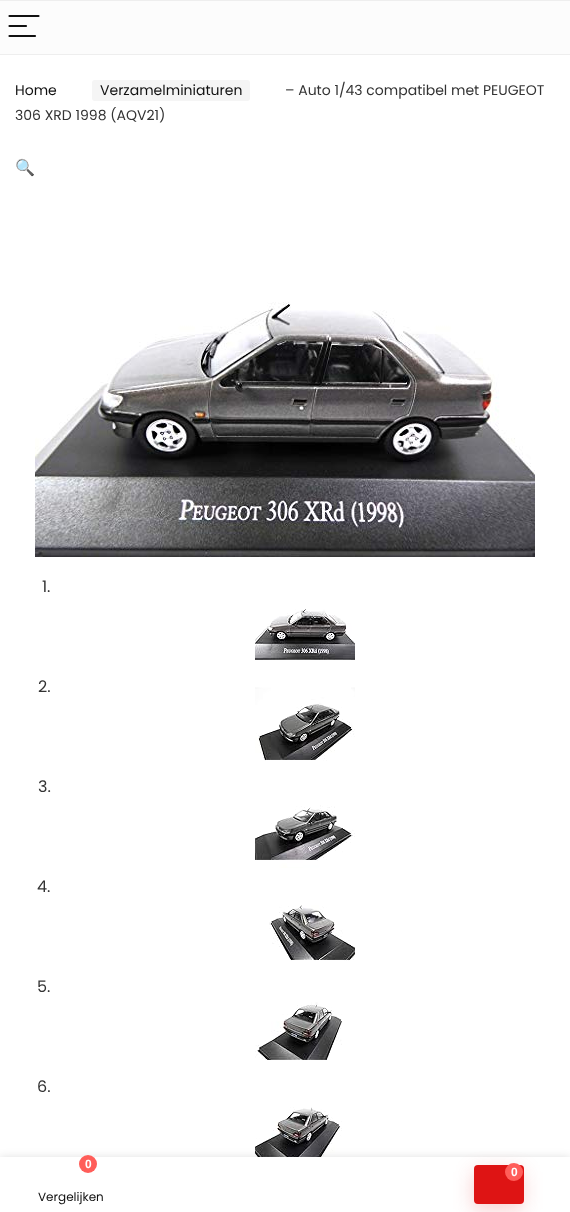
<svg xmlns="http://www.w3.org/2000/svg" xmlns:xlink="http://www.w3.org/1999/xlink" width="570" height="1212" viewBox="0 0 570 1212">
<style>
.cls-1{font:14px Poppins;fill:#111111}
.cls-2{font:14px Poppins;fill:#333333}
.cls-3{font:16px Noto Color Emoji;fill:#ff5d59}
.cls-4{font:16px Poppins;fill:#333333}
.cls-5{font:bold 12px Liberation Sans;fill:#ffffff}
.cls-6{font:12px Poppins;fill:#111111}
</style>
<rect width="100%" height="100%" fill="#ffffff"/>
<rect fill="#f5f5f5" x="92" y="80" width="158" height="21" rx="3"/>
<image xlink:href="image0.png" x="35" y="302" width="500" height="255"/>
<image xlink:href="image1.png" x="255" y="609" width="100" height="51"/>
<image xlink:href="image2.png" x="255" y="687" width="100" height="74"/>
<image xlink:href="image3.png" x="255" y="805" width="100" height="63"/>
<image xlink:href="image4.png" x="269" y="905" width="86" height="56"/>
<image xlink:href="image5.png" x="255" y="1002" width="87" height="58"/>
<image xlink:href="image6.png" x="255" y="1107" width="87" height="50"/>
<rect fill="#fcfcfc" x="0" y="1" width="570" height="53"/>
<rect fill="#eeeeee" x="0" y="0" width="570" height="1"/>
<rect fill="#eeeeee" x="0" y="54" width="570" height="1"/>
<path fill="none" stroke="#111111" stroke-width="2.2" stroke-linecap="round" d="M9.5 16H38.5M9.5 26H26M9.5 36H35"/>
<rect fill="#000000" fill-opacity="0.12" filter="blur(4.5px)" x="0" y="1157" width="570" height="55"/>
<rect fill="#ffffff" x="0" y="1157" width="570" height="55"/>
<circle fill="#ff5d59" cx="88" cy="1164" r="9"/>
<rect fill="#de1414" fill-opacity="0.2" filter="blur(9.5px)" x="473" y="1171" width="50" height="39" rx="4"/>
<rect fill="#de1414" x="474" y="1165" width="50" height="39" rx="4"/>
<circle fill="#ff5d59" cx="514" cy="1172" r="9"/>
<text class="cls-1" x="15" y="95">Home</text>
<text class="cls-1" x="100" y="95">Verzamelminiaturen</text>
<text class="cls-2" x="285" y="95">– Auto 1/43 compatibel met PEUGEOT</text>
<text class="cls-2" x="15" y="120">306 XRD 1998 (AQV21)</text>
<text class="cls-3" x="15" y="173">🔍</text>
<text class="cls-4" x="42" y="592">1.</text>
<text class="cls-4" x="38" y="692">2.</text>
<text class="cls-4" x="38" y="792">3.</text>
<text class="cls-4" x="37" y="892">4.</text>
<text class="cls-4" x="37" y="992">5.</text>
<text class="cls-4" x="37" y="1092">6.</text>
<text class="cls-5" x="85" y="1168">0</text>
<text class="cls-6" x="38" y="1201">Vergelijken</text>
<text class="cls-5" x="511" y="1176">0</text>
</svg>
